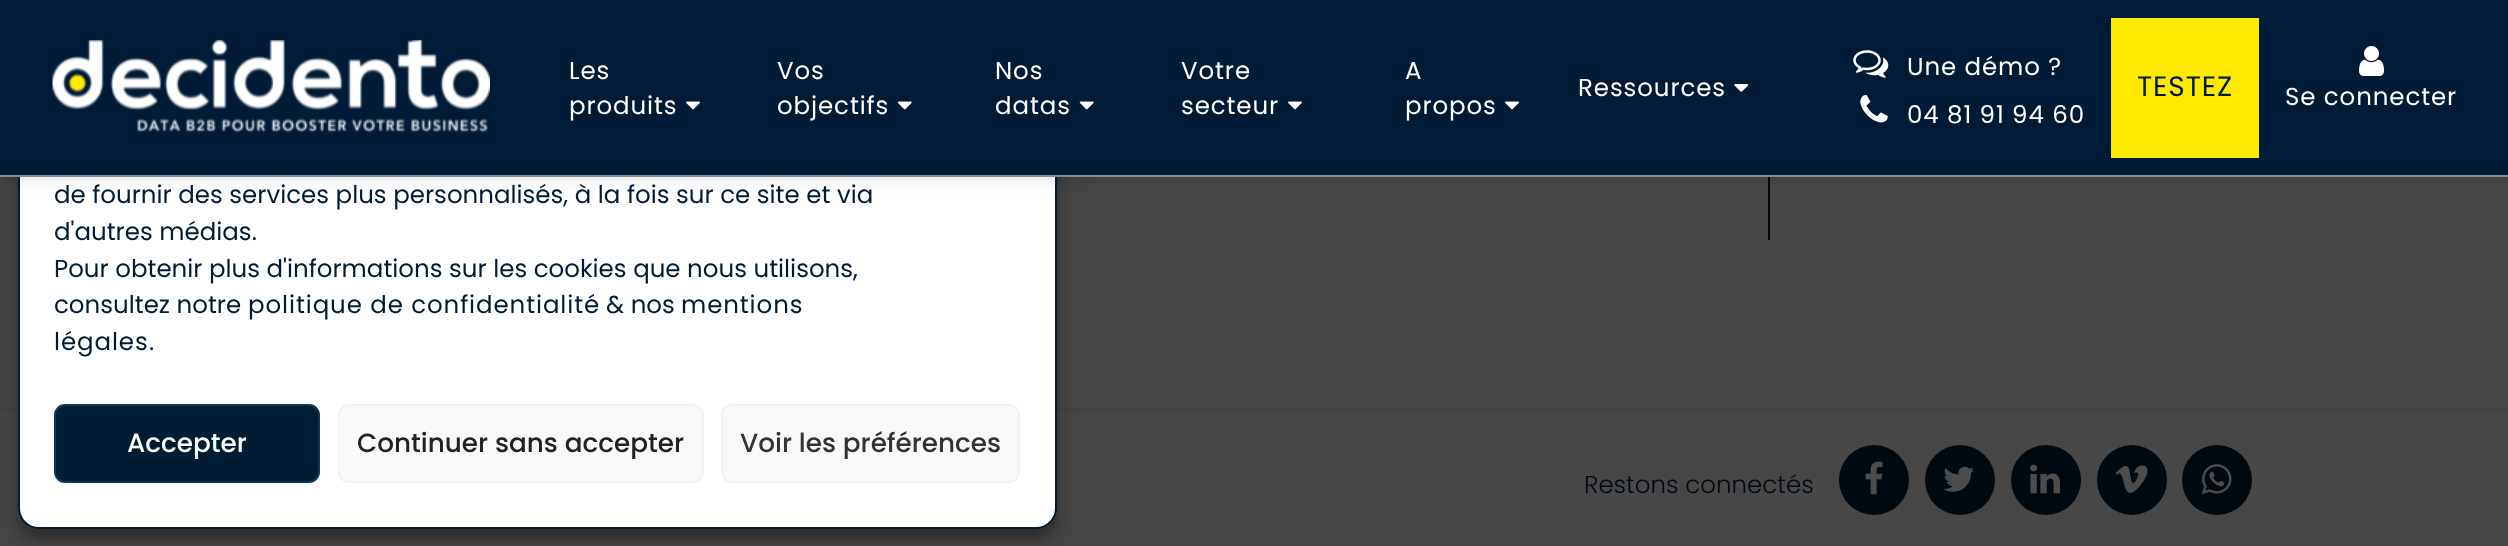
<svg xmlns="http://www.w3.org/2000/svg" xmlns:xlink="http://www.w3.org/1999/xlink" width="2508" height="546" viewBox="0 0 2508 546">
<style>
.cls-1{font:24.5px Poppins;letter-spacing:0.9px;fill:#ffffff}
.cls-2{font:28px Poppins;letter-spacing:0.9px;fill:#001b36}
.cls-3{font:24.5px Poppins;fill:#001b36}
.cls-4{font:24.5px Poppins;letter-spacing:0.9px;fill:#001b36}
.cls-5{font:500 26.25px Poppins;fill:#ffffff}
.cls-6{font:500 26.25px Poppins;fill:#222222}
.cls-7{font:500 26.25px Poppins;fill:#333333}
.cls-8{font:300 24.5px Poppins;fill:#000810}
</style>
<rect width="100%" height="100%" fill="#474748"/>
<rect fill="#434344" x="0" y="408" width="2508" height="2"/>
<rect fill="#000000" fill-opacity="0.23" filter="blur(5px)" x="18" y="53" width="1039" height="486" rx="21"/>
<rect fill="#000000" fill-opacity="0.19" filter="blur(17.5px)" x="18" y="60" width="1039" height="486" rx="21"/>
<rect fill="#ffffff" stroke="#001b36" stroke-width="2" x="19" y="43" width="1037" height="485" rx="20"/>
<rect fill="#000810" x="1768" y="177" width="2" height="63"/>
<rect fill="#000000" fill-opacity="0.2" filter="blur(9px)" x="0" y="-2" width="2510" height="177"/>
<rect fill="#001b36" x="0" y="0" width="2508" height="175"/>
<rect fill="#808d9b" x="0" y="175" width="2508" height="2"/>
<image xlink:href="image0.png" x="52" y="40" width="438" height="93"/>
<image xlink:href="image1.png" x="686" y="101" width="14" height="9"/>
<image xlink:href="image2.png" x="897" y="101" width="15" height="9"/>
<image xlink:href="image2.png" x="1079" y="101" width="15" height="9"/>
<image xlink:href="image1.png" x="1288" y="101" width="14" height="9"/>
<image xlink:href="image1.png" x="1505" y="101" width="14" height="9"/>
<image xlink:href="image3.png" x="1734" y="84" width="15" height="8"/>
<image xlink:href="image4.png" x="1853" y="50" width="36" height="28"/>
<image xlink:href="image5.png" x="1860" y="95" width="28" height="28"/>
<rect fill="#ffe900" x="2111" y="18" width="148" height="140"/>
<image xlink:href="image6.png" x="2359" y="46" width="25" height="30"/>
<rect fill="#001d36" stroke="#0d3859" stroke-width="2" x="55" y="405" width="264" height="77" rx="10"/>
<rect fill="#f9f9f9" stroke="#f2f2f2" stroke-width="2" x="339" y="405" width="364" height="77" rx="10"/>
<rect fill="#f9f9f9" stroke="#f2f2f2" stroke-width="2" x="722" y="405" width="297" height="77" rx="10"/>
<circle fill="#000810" cx="1874" cy="480" r="35"/>
<image xlink:href="image7.png" x="1865" y="461" width="18" height="34"/>
<circle fill="#000810" cx="1960" cy="480" r="35"/>
<image xlink:href="image8.png" x="1943" y="466" width="31" height="26"/>
<circle fill="#000810" cx="2046" cy="480" r="35"/>
<image xlink:href="image9.png" x="2030" y="464" width="30" height="30"/>
<circle fill="#000810" cx="2132" cy="480" r="35"/>
<image xlink:href="image10.png" x="2115" y="465" width="33" height="28"/>
<circle fill="#000810" cx="2217" cy="480" r="35"/>
<image xlink:href="image11.png" x="2201" y="464" width="31" height="31"/>
<text class="cls-1"><tspan x="569" y="79">Les</tspan><tspan x="569" y="114">produits</tspan></text>
<text class="cls-1"><tspan x="777" y="79">Vos</tspan><tspan x="777" y="114">objectifs</tspan></text>
<text class="cls-1"><tspan x="995" y="79">Nos</tspan><tspan x="995" y="114">datas</tspan></text>
<text class="cls-1"><tspan x="1181" y="79">Votre</tspan><tspan x="1181" y="114">secteur</tspan></text>
<text class="cls-1"><tspan x="1405" y="79">A</tspan><tspan x="1405" y="114">propos</tspan></text>
<text class="cls-1" x="1578" y="96">Ressources</text>
<text class="cls-1"><tspan x="1907" y="75">Une démo ?</tspan><tspan x="1907" y="123">04 81 91 94 60</tspan></text>
<text class="cls-2" x="2137" y="96">TESTEZ</text>
<text class="cls-1" x="2285" y="105">Se connecter</text>
<text class="cls-3"><tspan x="54" y="203">de fournir des services plus personnalisés, à la fois sur ce site et via</tspan><tspan x="54" y="240">d'autres médias.</tspan><tspan x="54" y="277">Pour obtenir plus d'informations sur les cookies que nous utilisons,</tspan><tspan x="54" y="313">consultez notre</tspan></text>
<text class="cls-4" x="248" y="313">politique de confidentialité</text>
<text class="cls-3" x="606" y="313">&amp; nos</text>
<text class="cls-4" x="681" y="313">mentions</text>
<text class="cls-4" x="54" y="350">légales</text>
<text class="cls-3" x="149" y="350">.</text>
<text class="cls-5" x="127" y="452">Accepter</text>
<text class="cls-6" x="357" y="452">Continuer sans accepter</text>
<text class="cls-7" x="740" y="452">Voir les préférences</text>
<text class="cls-8" x="1584" y="493">Restons connectés</text>
</svg>
